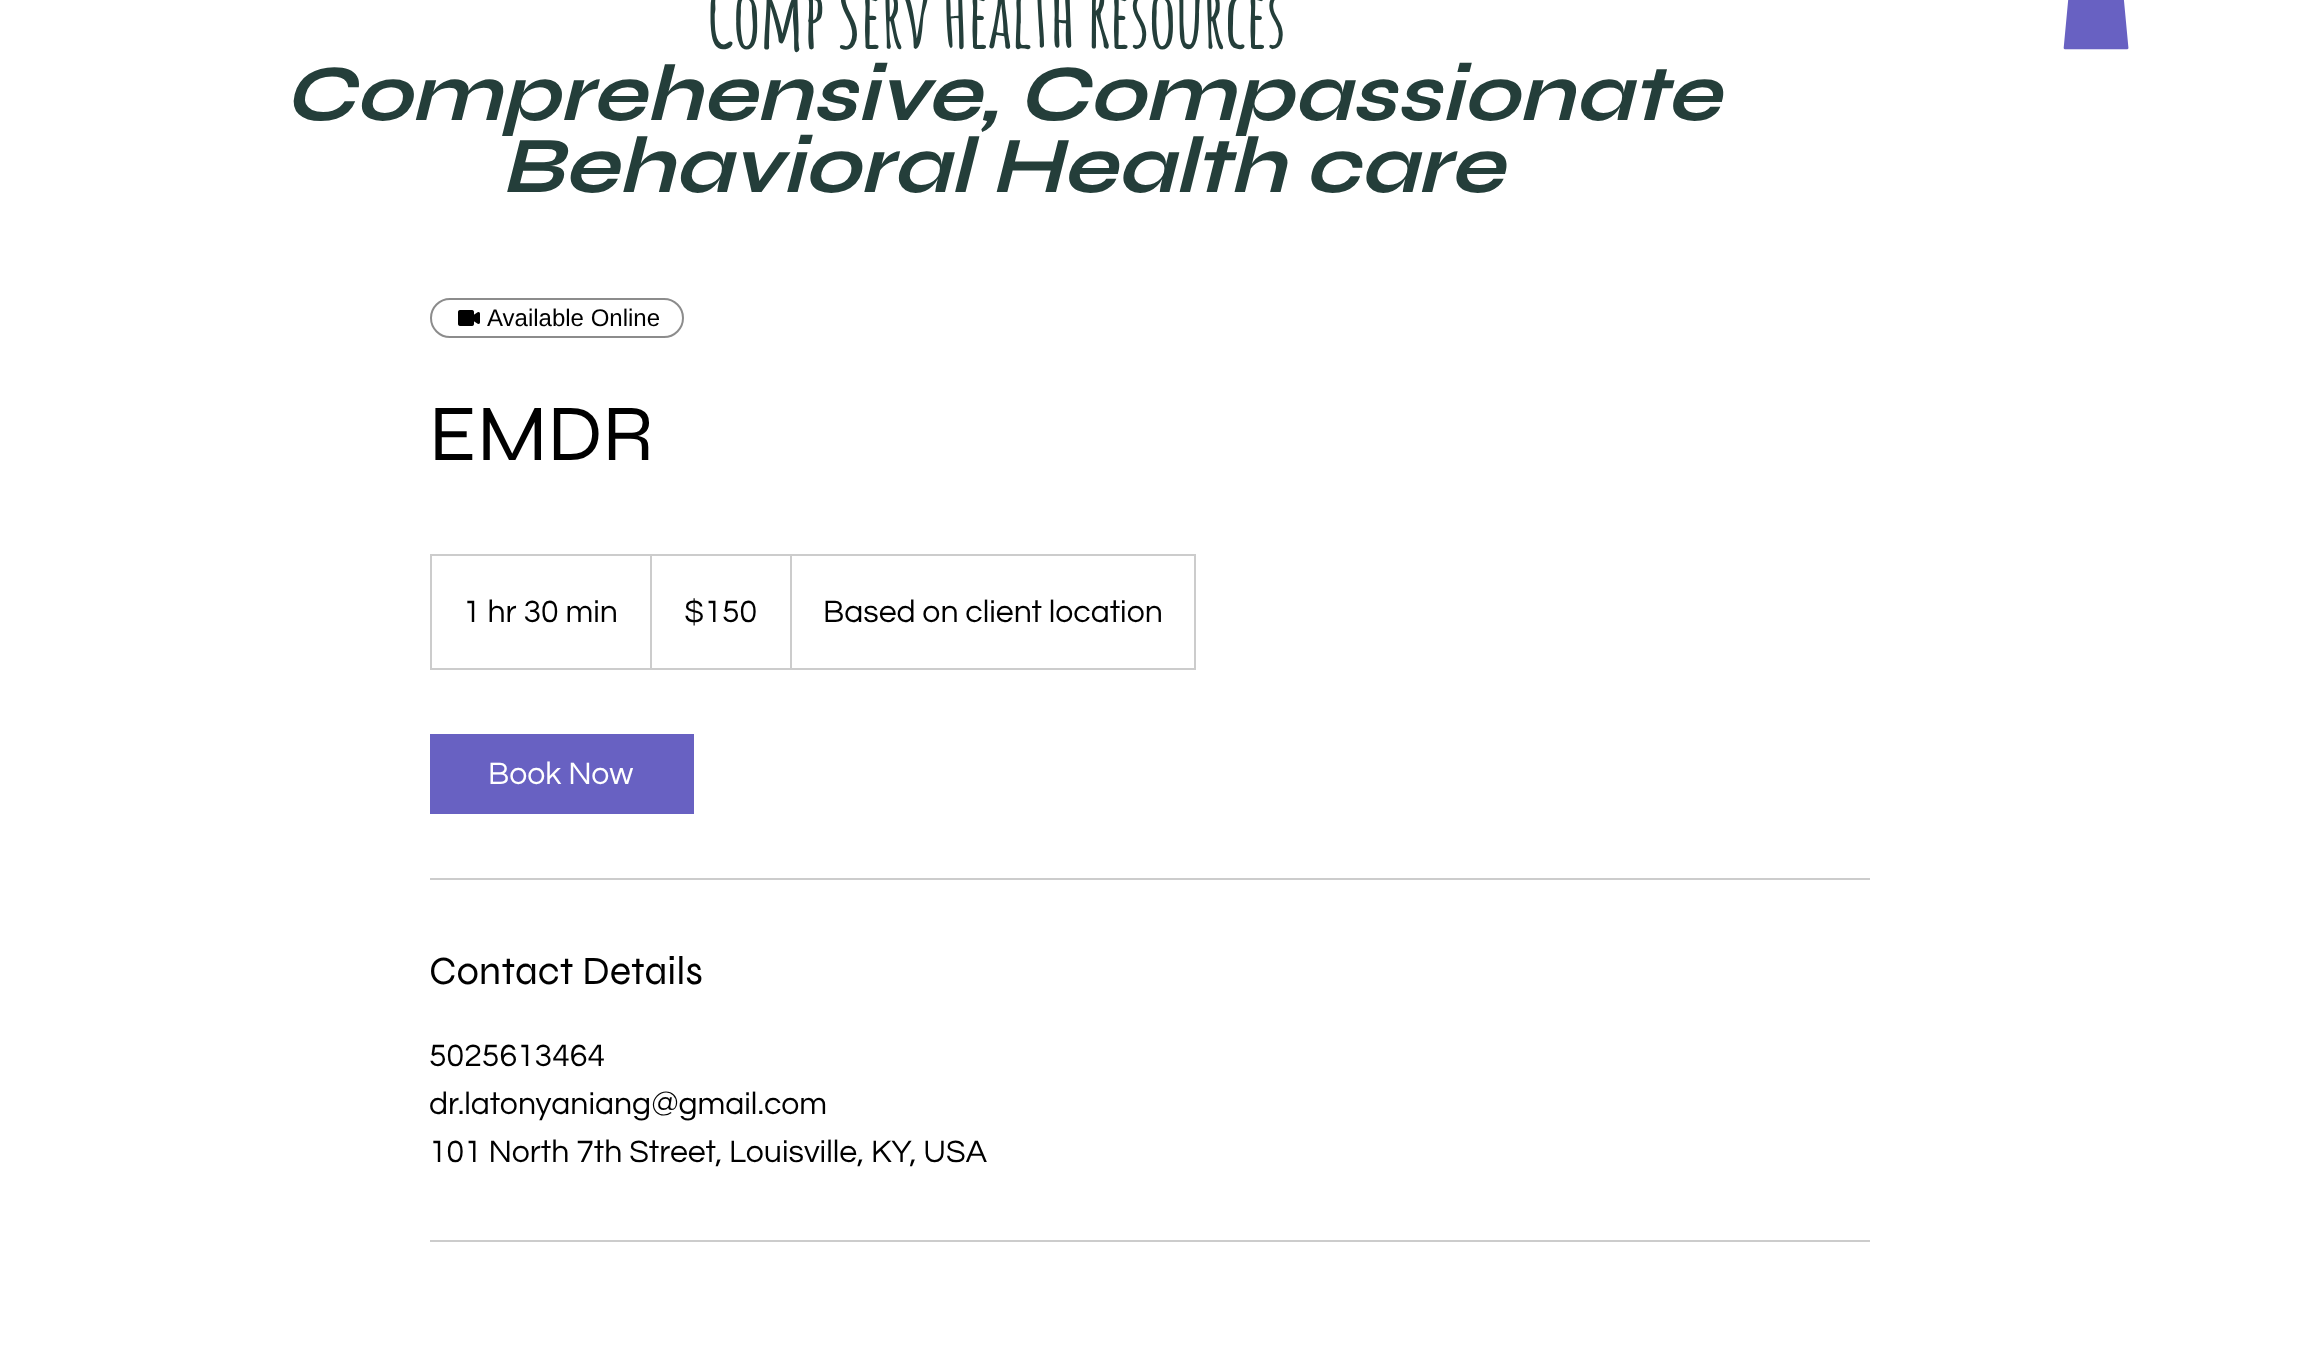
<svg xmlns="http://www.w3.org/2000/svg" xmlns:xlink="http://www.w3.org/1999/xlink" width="2298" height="1353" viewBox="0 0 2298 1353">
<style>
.cls-1{font:bold 80px Amatic SC;letter-spacing:-1.6px;fill:#243e3a}
.cls-2{font:italic bold 80px Syne;fill:#243e3a}
.cls-3{font:24px Liberation Sans;fill:#000000}
.cls-4{font:80px Syne;fill:#000000}
.cls-5{font:32px Questrial;fill:#000000}
.cls-6{font:32px Questrial;fill:#ffffff}
.cls-7{font:40px Syne;fill:#000000}
</style>
<defs>
<clipPath id="clip1"><rect x="432" y="556" width="762" height="112"/></clipPath>
</defs>
<rect width="100%" height="100%" fill="#ffffff"/>
<image xlink:href="image0.png" x="2063" y="0" width="66" height="50"/>
<rect fill="none" stroke="#8c8c8c" stroke-width="2" x="431" y="299" width="252" height="38" rx="19"/>
<image xlink:href="image1.png" x="458" y="310" width="22" height="16"/>
<rect fill="none" stroke="#cccccc" stroke-width="2" x="431" y="555" width="764" height="114"/>
<g clip-path="url(#clip1)">
<path fill="#cccccc" d="M650 668V554L652 556V668Z"/>
<path fill="#cccccc" d="M790 668V554L792 556V668Z"/>
</g>
<rect fill="#6861c2" x="430" y="734" width="264" height="80"/>
<rect fill="#cccccc" x="430" y="878" width="1440" height="2"/>
<rect fill="#cccccc" x="430" y="1240" width="1440" height="2"/>
<text class="cls-1" x="707" y="48">Comp Serv Health Resources</text>
<text class="cls-2" x="284" y="120">Comprehensive, Compassionate</text>
<text class="cls-2" x="501" y="192">Behavioral Health care</text>
<text class="cls-3" x="487" y="326">Available Online</text>
<text class="cls-4" x="429" y="460">EMDR</text>
<text class="cls-5" x="463" y="622">1 hr 30 min</text>
<text class="cls-5" x="684" y="622">$150</text>
<text class="cls-5" x="823" y="622">Based on client location</text>
<text class="cls-6" x="488" y="784">Book Now</text>
<text class="cls-7" x="429" y="984">Contact Details</text>
<text class="cls-5"><tspan x="429" y="1066">5025613464</tspan><tspan x="429" y="1114">dr.latonyaniang@gmail.com</tspan><tspan x="429" y="1162">101 North 7th Street, Louisville, KY, USA</tspan></text>
</svg>
